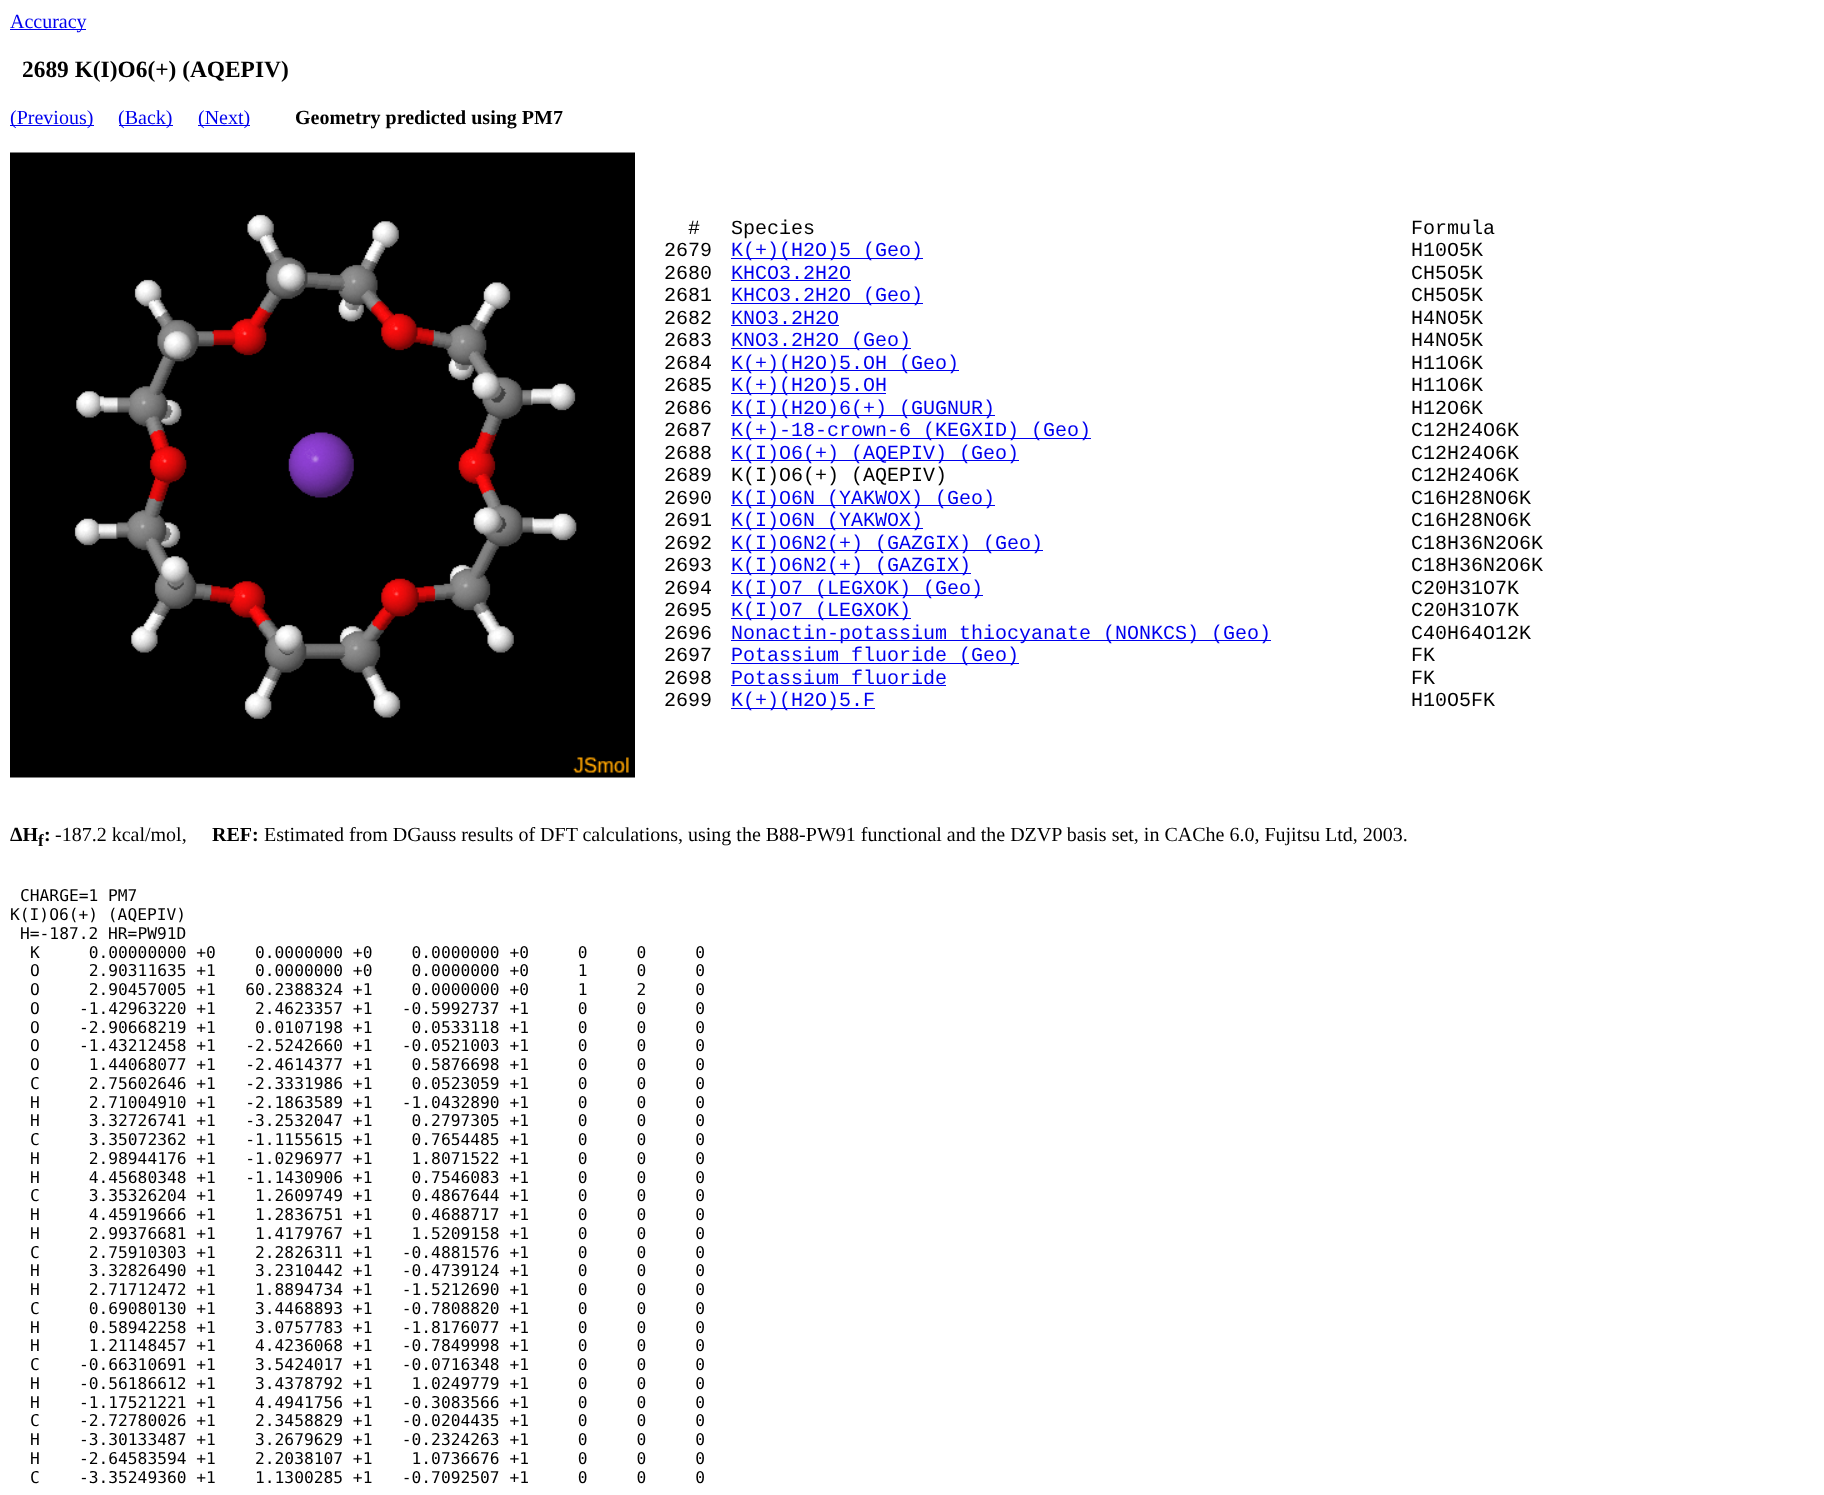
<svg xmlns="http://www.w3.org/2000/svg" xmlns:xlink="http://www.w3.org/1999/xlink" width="1824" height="1495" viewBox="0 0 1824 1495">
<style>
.cls-1{font:20px Liberation Serif;fill:#0000ee}
.cls-2{font:bold 23.4px Liberation Serif;fill:#000000}
.cls-3{font:bold 20px Liberation Serif;fill:#000000}
.cls-4{font:20px Liberation Mono;fill:#000000}
.cls-5{font:20px Liberation Mono;fill:#0000ee}
.cls-6{font:bold 17px Liberation Serif;fill:#000000}
.cls-7{font:20px Liberation Serif;fill:#000000}
.cls-8{font:16.25px DejaVu Sans Mono;fill:#000000}
</style>
<rect width="100%" height="100%" fill="#ffffff"/>
<rect fill="#0000ee" x="10" y="29" width="76" height="1"/>
<rect fill="#0000ee" x="10" y="125" width="84" height="1"/>
<rect fill="#0000ee" x="119" y="125" width="54" height="1"/>
<rect fill="#0000ee" x="198" y="125" width="52" height="1"/>
<image xlink:href="image0.png" x="10" y="152" width="625" height="626"/>
<rect fill="#0000ee" x="731" y="258" width="192" height="1"/>
<rect fill="#0000ee" x="731" y="280" width="120" height="1"/>
<rect fill="#0000ee" x="731" y="303" width="192" height="1"/>
<rect fill="#0000ee" x="731" y="325" width="108" height="1"/>
<rect fill="#0000ee" x="731" y="348" width="180" height="1"/>
<rect fill="#0000ee" x="731" y="370" width="228" height="1"/>
<rect fill="#0000ee" x="731" y="393" width="155" height="1"/>
<rect fill="#0000ee" x="731" y="415" width="264" height="1"/>
<rect fill="#0000ee" x="731" y="438" width="360" height="1"/>
<rect fill="#0000ee" x="731" y="460" width="288" height="1"/>
<rect fill="#0000ee" x="731" y="505" width="264" height="1"/>
<rect fill="#0000ee" x="731" y="528" width="192" height="1"/>
<rect fill="#0000ee" x="731" y="550" width="312" height="1"/>
<rect fill="#0000ee" x="731" y="573" width="240" height="1"/>
<rect fill="#0000ee" x="731" y="595" width="252" height="1"/>
<rect fill="#0000ee" x="731" y="618" width="180" height="1"/>
<rect fill="#0000ee" x="731" y="640" width="540" height="1"/>
<rect fill="#0000ee" x="731" y="663" width="288" height="1"/>
<rect fill="#0000ee" x="731" y="685" width="215" height="1"/>
<rect fill="#0000ee" x="731" y="708" width="144" height="1"/>
<text class="cls-1" x="10" y="28">Accuracy</text>
<text class="cls-2" x="22" y="77">2689 K(I)O6(+) (AQEPIV)</text>
<text class="cls-1" x="10" y="124">(Previous)</text>
<text class="cls-1" x="118" y="124">(Back)</text>
<text class="cls-1" x="198" y="124">(Next)</text>
<text class="cls-3" x="295" y="124">Geometry predicted using PM7</text>
<text class="cls-4" x="688" y="234">#</text>
<text class="cls-4" x="731" y="234">Species</text>
<text class="cls-4" x="1411" y="234">Formula</text>
<text class="cls-4" x="664" y="256">2679</text>
<text class="cls-5" x="731" y="256">K(+)(H2O)5 (Geo)</text>
<text class="cls-4" x="1411" y="256">H10O5K</text>
<text class="cls-4" x="664" y="279">2680</text>
<text class="cls-5" x="731" y="279">KHCO3.2H2O</text>
<text class="cls-4" x="1411" y="279">CH5O5K</text>
<text class="cls-4" x="664" y="301">2681</text>
<text class="cls-5" x="731" y="301">KHCO3.2H2O (Geo)</text>
<text class="cls-4" x="1411" y="301">CH5O5K</text>
<text class="cls-4" x="664" y="324">2682</text>
<text class="cls-5" x="731" y="324">KNO3.2H2O</text>
<text class="cls-4" x="1411" y="324">H4NO5K</text>
<text class="cls-4" x="664" y="346">2683</text>
<text class="cls-5" x="731" y="346">KNO3.2H2O (Geo)</text>
<text class="cls-4" x="1411" y="346">H4NO5K</text>
<text class="cls-4" x="664" y="369">2684</text>
<text class="cls-5" x="731" y="369">K(+)(H2O)5.OH (Geo)</text>
<text class="cls-4" x="1411" y="369">H11O6K</text>
<text class="cls-4" x="664" y="391">2685</text>
<text class="cls-5" x="731" y="391">K(+)(H2O)5.OH</text>
<text class="cls-4" x="1411" y="391">H11O6K</text>
<text class="cls-4" x="664" y="414">2686</text>
<text class="cls-5" x="731" y="414">K(I)(H2O)6(+) (GUGNUR)</text>
<text class="cls-4" x="1411" y="414">H12O6K</text>
<text class="cls-4" x="664" y="436">2687</text>
<text class="cls-5" x="731" y="436">K(+)-18-crown-6 (KEGXID) (Geo)</text>
<text class="cls-4" x="1411" y="436">C12H24O6K</text>
<text class="cls-4" x="664" y="459">2688</text>
<text class="cls-5" x="731" y="459">K(I)O6(+) (AQEPIV) (Geo)</text>
<text class="cls-4" x="1411" y="459">C12H24O6K</text>
<text class="cls-4" x="664" y="481">2689</text>
<text class="cls-4" x="731" y="481">K(I)O6(+) (AQEPIV)</text>
<text class="cls-4" x="1411" y="481">C12H24O6K</text>
<text class="cls-4" x="664" y="504">2690</text>
<text class="cls-5" x="731" y="504">K(I)O6N (YAKWOX) (Geo)</text>
<text class="cls-4" x="1411" y="504">C16H28NO6K</text>
<text class="cls-4" x="664" y="526">2691</text>
<text class="cls-5" x="731" y="526">K(I)O6N (YAKWOX)</text>
<text class="cls-4" x="1411" y="526">C16H28NO6K</text>
<text class="cls-4" x="664" y="549">2692</text>
<text class="cls-5" x="731" y="549">K(I)O6N2(+) (GAZGIX) (Geo)</text>
<text class="cls-4" x="1411" y="549">C18H36N2O6K</text>
<text class="cls-4" x="664" y="571">2693</text>
<text class="cls-5" x="731" y="571">K(I)O6N2(+) (GAZGIX)</text>
<text class="cls-4" x="1411" y="571">C18H36N2O6K</text>
<text class="cls-4" x="664" y="594">2694</text>
<text class="cls-5" x="731" y="594">K(I)O7 (LEGXOK) (Geo)</text>
<text class="cls-4" x="1411" y="594">C20H31O7K</text>
<text class="cls-4" x="664" y="616">2695</text>
<text class="cls-5" x="731" y="616">K(I)O7 (LEGXOK)</text>
<text class="cls-4" x="1411" y="616">C20H31O7K</text>
<text class="cls-4" x="664" y="639">2696</text>
<text class="cls-5" x="731" y="639">Nonactin-potassium thiocyanate (NONKCS) (Geo)</text>
<text class="cls-4" x="1411" y="639">C40H64O12K</text>
<text class="cls-4" x="664" y="661">2697</text>
<text class="cls-5" x="731" y="661">Potassium fluoride (Geo)</text>
<text class="cls-4" x="1411" y="661">FK</text>
<text class="cls-4" x="664" y="684">2698</text>
<text class="cls-5" x="731" y="684">Potassium fluoride</text>
<text class="cls-4" x="1411" y="684">FK</text>
<text class="cls-4" x="664" y="706">2699</text>
<text class="cls-5" x="731" y="706">K(+)(H2O)5.F</text>
<text class="cls-4" x="1411" y="706">H10O5FK</text>
<text class="cls-3" x="10" y="841">ΔH</text>
<text class="cls-6" x="38" y="846">f</text>
<text class="cls-3" x="44" y="841">:</text>
<text class="cls-7" x="55" y="841">-187.2 kcal/mol,</text>
<text class="cls-3" x="212" y="841">REF:</text>
<text class="cls-7" x="264" y="841">Estimated from DGauss results of DFT calculations, using the B88-PW91 functional and the DZVP basis set, in CAChe 6.0, Fujitsu Ltd, 2003.</text>
<text class="cls-8" x="20" y="901">CHARGE=1 PM7</text>
<text class="cls-8" x="10" y="920">K(I)O6(+) (AQEPIV)</text>
<text class="cls-8" x="20" y="939">H=-187.2 HR=PW91D</text>
<text class="cls-8" xml:space="preserve"><tspan x="30" y="958">K     0.00000000 +0    0.0000000 +0    0.0000000 +0     0     0     0</tspan><tspan x="30" y="976">O     2.90311635 +1    0.0000000 +0    0.0000000 +0     1     0     0</tspan><tspan x="30" y="995">O     2.90457005 +1   60.2388324 +1    0.0000000 +0     1     2     0</tspan><tspan x="30" y="1014">O    -1.42963220 +1    2.4623357 +1   -0.5992737 +1     0     0     0</tspan><tspan x="30" y="1033">O    -2.90668219 +1    0.0107198 +1    0.0533118 +1     0     0     0</tspan><tspan x="30" y="1051">O    -1.43212458 +1   -2.5242660 +1   -0.0521003 +1     0     0     0</tspan><tspan x="30" y="1070">O     1.44068077 +1   -2.4614377 +1    0.5876698 +1     0     0     0</tspan><tspan x="30" y="1089">C     2.75602646 +1   -2.3331986 +1    0.0523059 +1     0     0     0</tspan><tspan x="30" y="1108">H     2.71004910 +1   -2.1863589 +1   -1.0432890 +1     0     0     0</tspan><tspan x="30" y="1126">H     3.32726741 +1   -3.2532047 +1    0.2797305 +1     0     0     0</tspan><tspan x="30" y="1145">C     3.35072362 +1   -1.1155615 +1    0.7654485 +1     0     0     0</tspan><tspan x="30" y="1164">H     2.98944176 +1   -1.0296977 +1    1.8071522 +1     0     0     0</tspan><tspan x="30" y="1183">H     4.45680348 +1   -1.1430906 +1    0.7546083 +1     0     0     0</tspan><tspan x="30" y="1201">C     3.35326204 +1    1.2609749 +1    0.4867644 +1     0     0     0</tspan><tspan x="30" y="1220">H     4.45919666 +1    1.2836751 +1    0.4688717 +1     0     0     0</tspan><tspan x="30" y="1239">H     2.99376681 +1    1.4179767 +1    1.5209158 +1     0     0     0</tspan><tspan x="30" y="1258">C     2.75910303 +1    2.2826311 +1   -0.4881576 +1     0     0     0</tspan><tspan x="30" y="1276">H     3.32826490 +1    3.2310442 +1   -0.4739124 +1     0     0     0</tspan><tspan x="30" y="1295">H     2.71712472 +1    1.8894734 +1   -1.5212690 +1     0     0     0</tspan><tspan x="30" y="1314">C     0.69080130 +1    3.4468893 +1   -0.7808820 +1     0     0     0</tspan><tspan x="30" y="1333">H     0.58942258 +1    3.0757783 +1   -1.8176077 +1     0     0     0</tspan><tspan x="30" y="1351">H     1.21148457 +1    4.4236068 +1   -0.7849998 +1     0     0     0</tspan><tspan x="30" y="1370">C    -0.66310691 +1    3.5424017 +1   -0.0716348 +1     0     0     0</tspan><tspan x="30" y="1389">H    -0.56186612 +1    3.4378792 +1    1.0249779 +1     0     0     0</tspan><tspan x="30" y="1408">H    -1.17521221 +1    4.4941756 +1   -0.3083566 +1     0     0     0</tspan><tspan x="30" y="1426">C    -2.72780026 +1    2.3458829 +1   -0.0204435 +1     0     0     0</tspan><tspan x="30" y="1445">H    -3.30133487 +1    3.2679629 +1   -0.2324263 +1     0     0     0</tspan><tspan x="30" y="1464">H    -2.64583594 +1    2.2038107 +1    1.0736676 +1     0     0     0</tspan><tspan x="30" y="1483">C    -3.35249360 +1    1.1300285 +1   -0.7092507 +1     0     0     0</tspan></text>
</svg>
